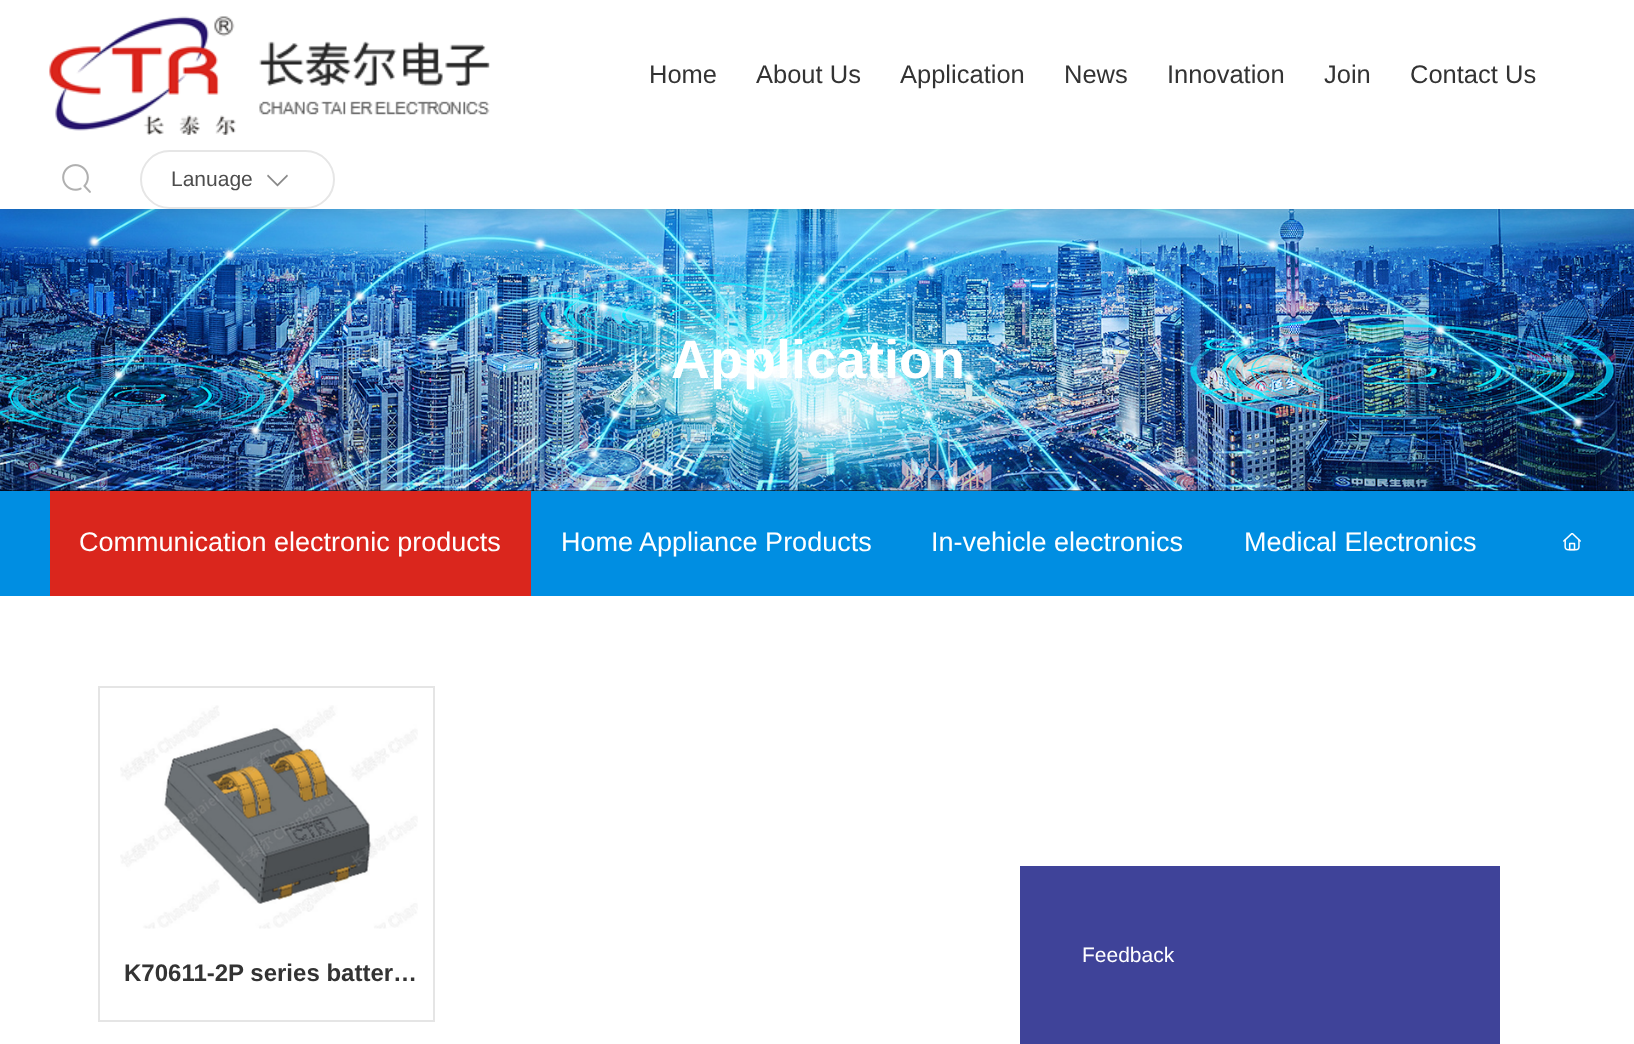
<svg xmlns="http://www.w3.org/2000/svg" xmlns:xlink="http://www.w3.org/1999/xlink" width="1634" height="1044" viewBox="0 0 1634 1044">
<style>
.cls-1{font:25.5px Liberation Sans;fill:#333333}
.cls-2{font:21px Liberation Sans;fill:#4d4d4d}
.cls-3{font:21px Liberation Sans;fill:#ffffff}
.cls-4{font:bold 54px Liberation Sans;fill:#ffffff}
.cls-5{font:27px Liberation Sans;fill:#ffffff}
.cls-6{font:bold 24px Liberation Sans;fill:#333333}
</style>
<rect width="100%" height="100%" fill="#000000"/>
<image xlink:href="image2.png" x="0" y="209" width="1634" height="282"/>
<rect fill="#000000" fill-opacity="0.2" filter="blur(11px)" x="0" y="0" width="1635" height="209"/>
<rect fill="#ffffff" x="0" y="0" width="1634" height="209"/>
<image xlink:href="image0.png" x="49" y="16" width="441" height="119"/>
<image xlink:href="image1.png" x="62" y="164" width="29" height="29"/>
<rect fill="none" stroke="#e6e6e6" stroke-width="2" x="141" y="151" width="193" height="57" rx="28.5"/>
<path fill="#8a8a8a" d="M268 174.5L267 176L277.5 186.5L288 176L287 174.5L277.5 184Z"/>
<rect fill="#ffffff" x="0" y="596" width="1634" height="448"/>
<rect fill="#3f4399" x="1497" y="866" width="3" height="178"/>
<rect fill="#3f4399" x="1020" y="866" width="477" height="178"/>
<rect fill="#008ee2" x="0" y="491" width="1634" height="105"/>
<rect fill="#da261d" x="50" y="491" width="481" height="105"/>
<image xlink:href="image3.png" x="1563" y="533" width="18" height="18"/>
<rect fill="none" stroke="#e5e5e5" stroke-width="2" x="99" y="687" width="335" height="334"/>
<image xlink:href="image4.png" x="120" y="705" width="298" height="224"/>
<text class="cls-1" x="649" y="83">Home</text>
<text class="cls-1" x="756" y="83">About Us</text>
<text class="cls-1" x="900" y="83">Application</text>
<text class="cls-1" x="1064" y="83">News</text>
<text class="cls-1" x="1167" y="83">Innovation</text>
<text class="cls-1" x="1324" y="83">Join</text>
<text class="cls-1" x="1410" y="83">Contact Us</text>
<text class="cls-2" x="171" y="186">Lanuage</text>
<text class="cls-3" x="1082" y="962">Feedback</text>
<text class="cls-4" x="671" y="378">Application</text>
<text class="cls-5" x="79" y="551">Communication electronic products</text>
<text class="cls-5" x="561" y="551">Home Appliance Products</text>
<text class="cls-5" x="931" y="551">In-vehicle electronics</text>
<text class="cls-5" x="1244" y="551">Medical Electronics</text>
<text class="cls-6" x="124" y="981">K70611-2P series batter…</text>
</svg>
